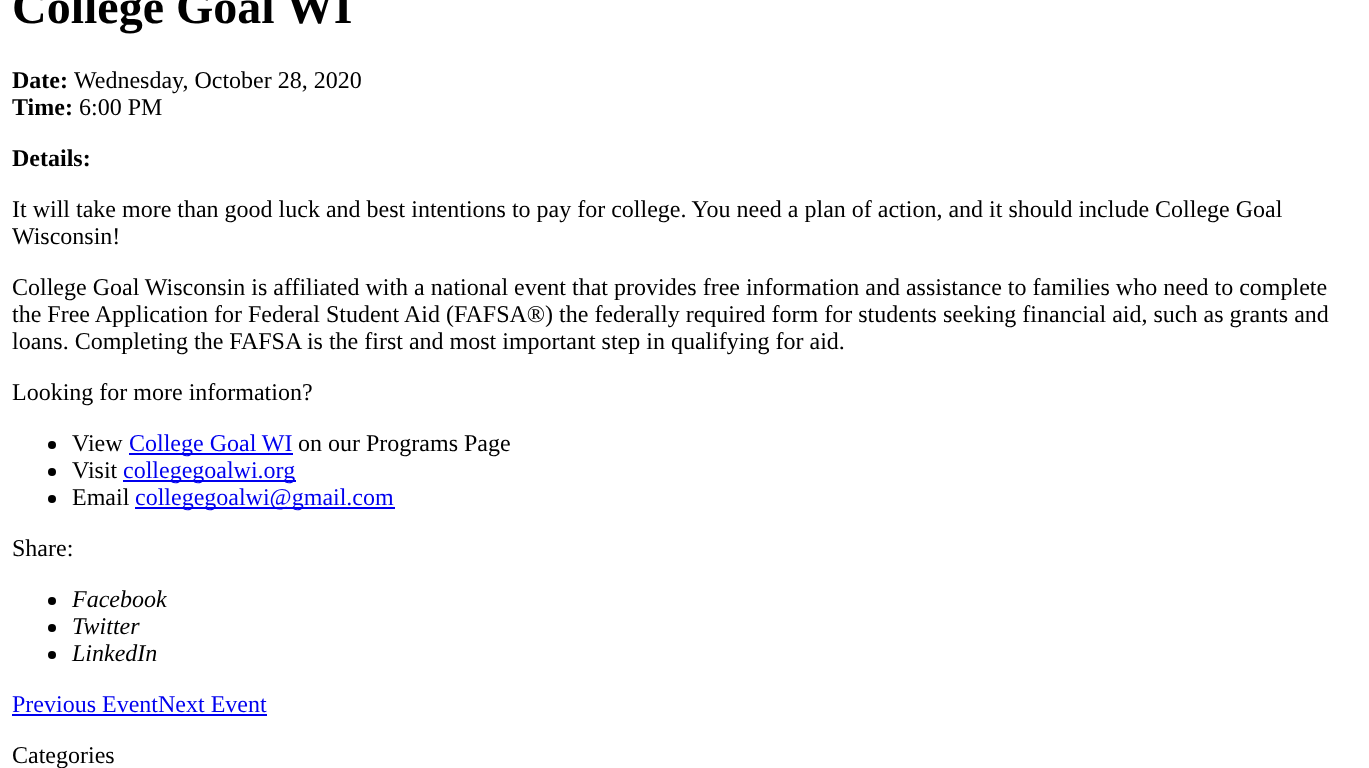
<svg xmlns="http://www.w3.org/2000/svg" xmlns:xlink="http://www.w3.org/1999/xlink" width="1369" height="768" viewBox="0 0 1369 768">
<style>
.cls-1{font:bold 48px Liberation Serif;fill:#000000}
.cls-2{font:bold 24px Liberation Serif;fill:#000000}
.cls-3{font:24px Liberation Serif;fill:#000000}
.cls-4{font:24px Liberation Serif;fill:#0000ee}
.cls-5{font:italic 24px Liberation Serif;fill:#000000}
</style>
<rect width="100%" height="100%" fill="#ffffff"/>
<circle fill="#000000" cx="52" cy="445" r="4"/>
<rect fill="#0000ee" x="129" y="453" width="164" height="2"/>
<circle fill="#000000" cx="52" cy="472" r="4"/>
<rect fill="#0000ee" x="123" y="480" width="173" height="2"/>
<circle fill="#000000" cx="52" cy="499" r="4"/>
<rect fill="#0000ee" x="135" y="507" width="260" height="2"/>
<circle fill="#000000" cx="52" cy="601" r="4"/>
<circle fill="#000000" cx="52" cy="628" r="4"/>
<circle fill="#000000" cx="52" cy="655" r="4"/>
<rect fill="#0000ee" x="12" y="714" width="255" height="2"/>
<text class="cls-1" x="12" y="23">College Goal WI</text>
<text class="cls-2" x="12" y="88">Date:</text>
<text class="cls-3" x="74" y="88">Wednesday, October 28, 2020</text>
<text class="cls-2" x="12" y="115">Time:</text>
<text class="cls-3" x="79" y="115">6:00 PM</text>
<text class="cls-2" x="12" y="166">Details:</text>
<text class="cls-3"><tspan x="12" y="217">It will take more than good luck and best intentions to pay for college. You need a plan of action, and it should include College Goal</tspan><tspan x="12" y="244">Wisconsin!</tspan></text>
<text class="cls-3"><tspan x="12" y="295">College Goal Wisconsin is affiliated with a national event that provides free information and assistance to families who need to complete</tspan><tspan x="12" y="322">the Free Application for Federal Student Aid (FAFSA®) the federally required form for students seeking financial aid, such as grants and</tspan><tspan x="12" y="349">loans. Completing the FAFSA is the first and most important step in qualifying for aid.</tspan></text>
<text class="cls-3" x="12" y="400">Looking for more information?</text>
<text class="cls-3" x="72" y="451">View</text>
<text class="cls-4" x="129" y="451">College Goal WI</text>
<text class="cls-3" x="298" y="451">on our Programs Page</text>
<text class="cls-3" x="72" y="478">Visit</text>
<text class="cls-4" x="123" y="478">collegegoalwi.org</text>
<text class="cls-3" x="72" y="505">Email</text>
<text class="cls-4" x="135" y="505">collegegoalwi@gmail.com</text>
<text class="cls-3" x="12" y="556">Share:</text>
<text class="cls-5"><tspan x="72" y="607">Facebook</tspan><tspan x="72" y="634">Twitter</tspan><tspan x="72" y="661">LinkedIn</tspan></text>
<text class="cls-4" x="12" y="712">Previous EventNext Event</text>
<text class="cls-3" x="12" y="763">Categories</text>
</svg>
